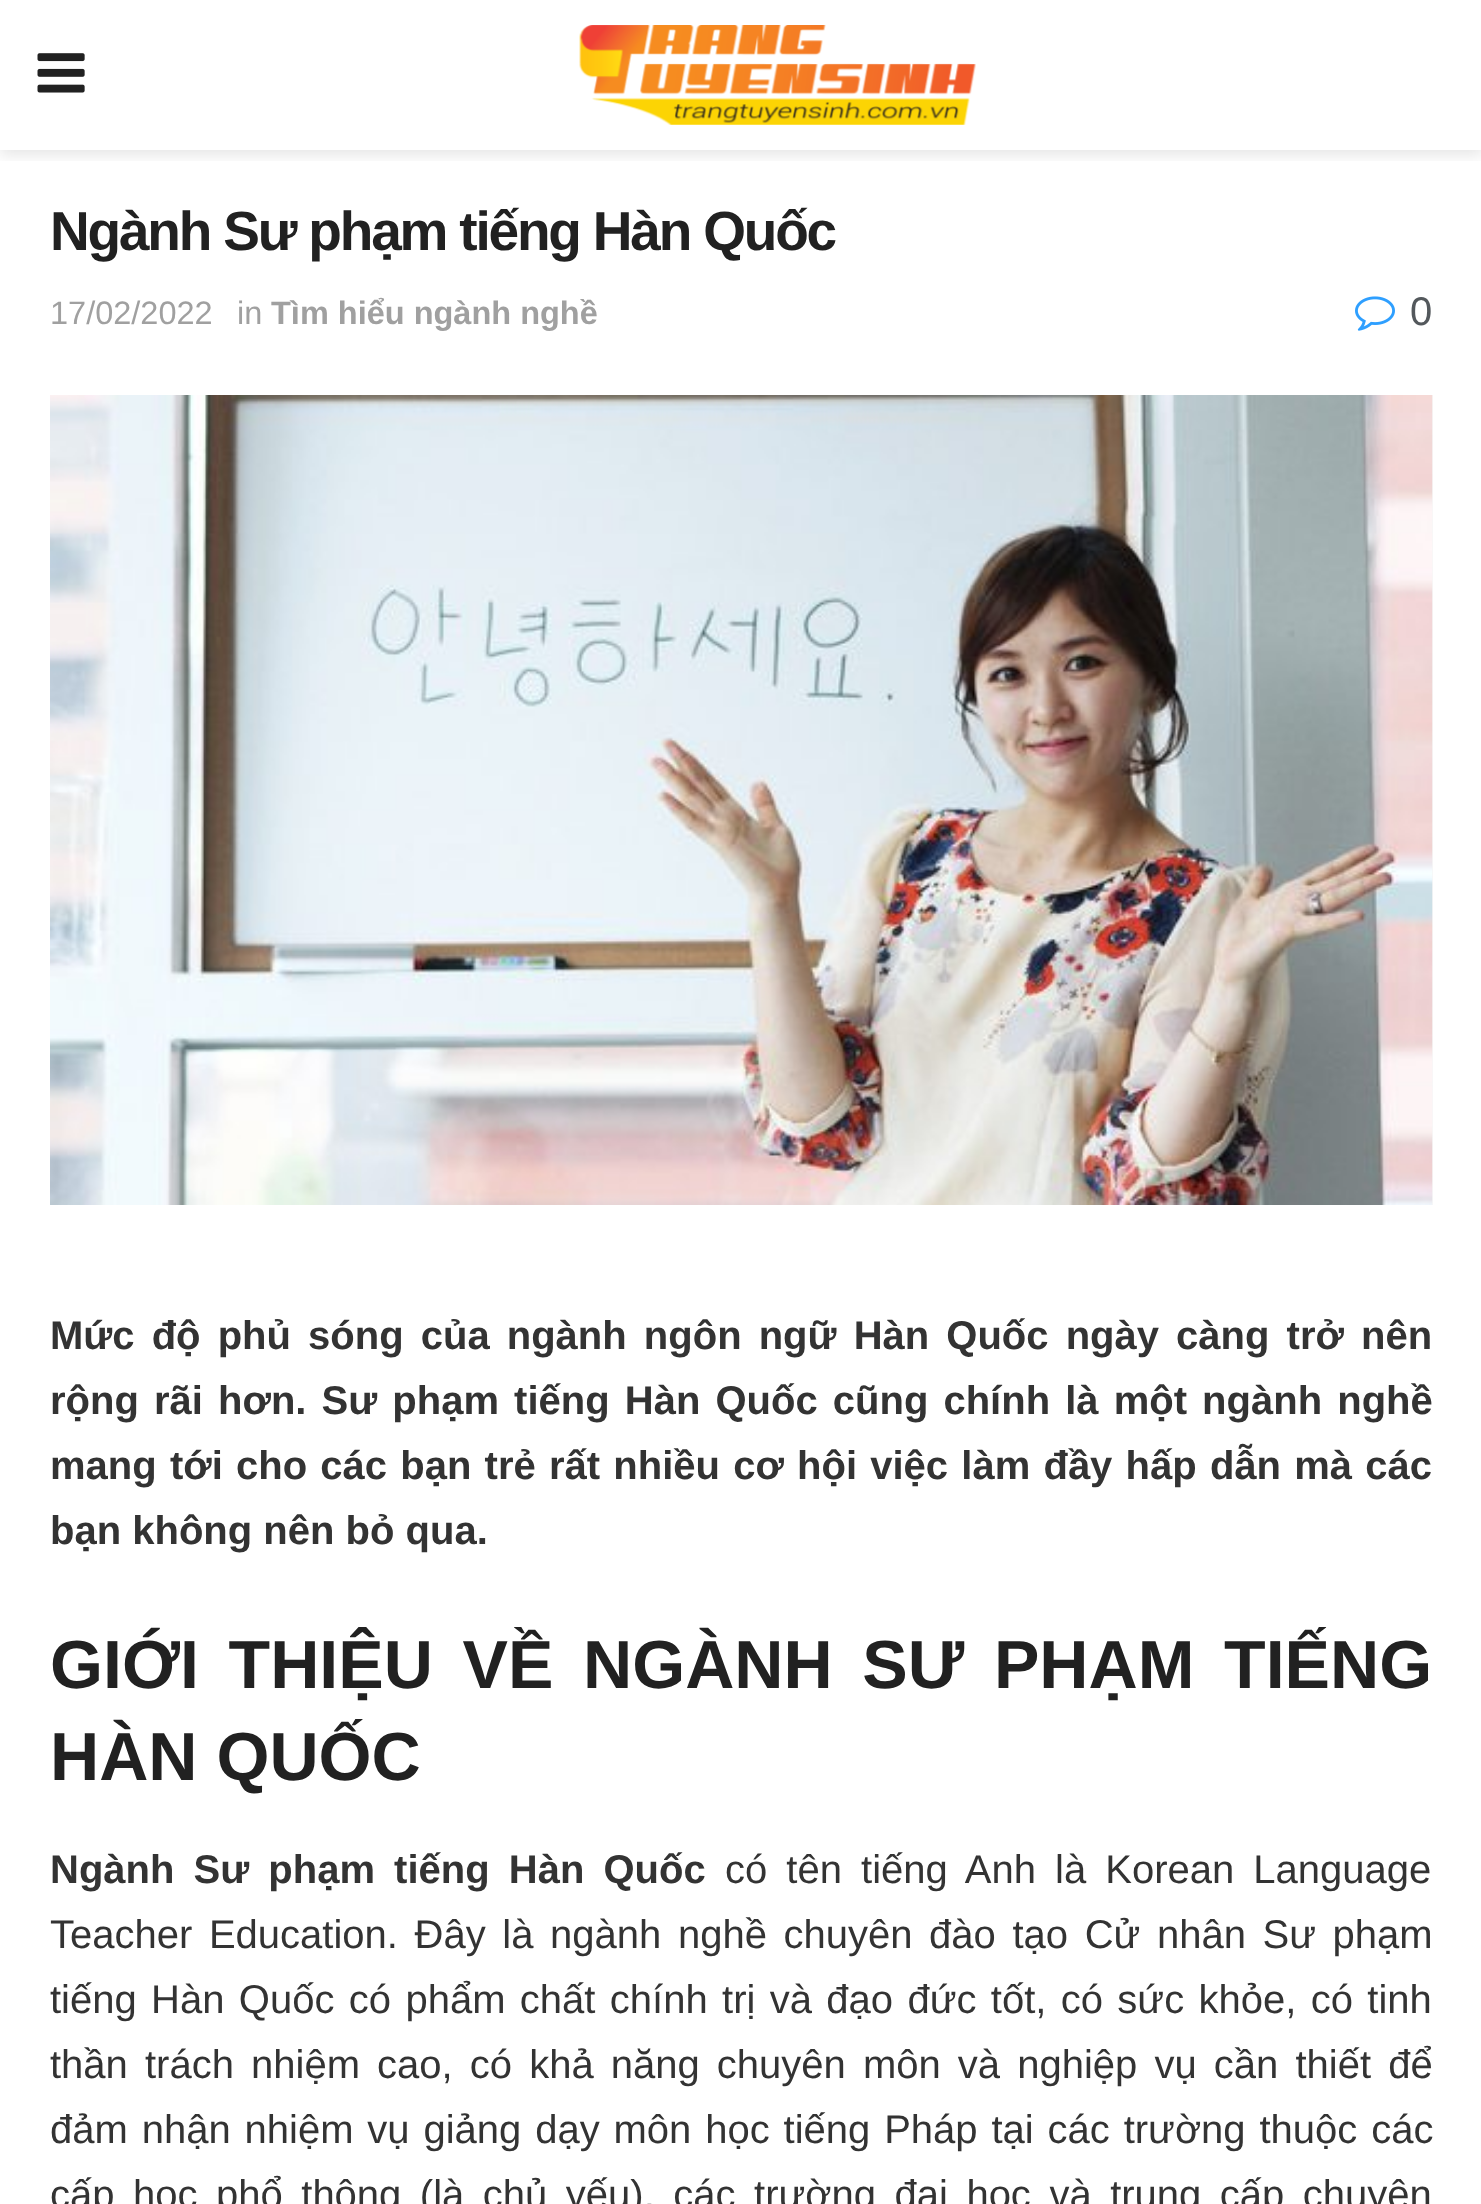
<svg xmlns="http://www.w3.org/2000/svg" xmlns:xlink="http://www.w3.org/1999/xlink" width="1481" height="2204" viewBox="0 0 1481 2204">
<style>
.cls-1{font:bold 55px Liberation Sans;letter-spacing:-2.2px;fill:#212121}
.cls-2{font:32.5px Liberation Sans;fill:#a0a0a0}
.cls-3{font:bold 32.5px Liberation Sans;fill:#a0a0a0}
.cls-4{font:40px Liberation Sans;fill:#53585c}
.cls-5{font:bold 40px Liberation Sans;fill:#333333}
.cls-6{font:bold 68.1px Liberation Sans;fill:#212121}
.cls-7{font:40px Liberation Sans;fill:#333333}
</style>
<defs>
<clipPath id="clip1"><rect x="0" y="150" width="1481" height="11"/></clipPath>
</defs>
<rect width="100%" height="100%" fill="#ffffff"/>
<g clip-path="url(#clip1)">
<rect fill="#000000" fill-opacity="0.1" filter="blur(7.5px)" x="0" y="5" width="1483" height="150"/>
</g>
<image xlink:href="image0.png" x="37" y="53" width="48" height="40"/>
<image xlink:href="image1.png" x="579" y="25" width="397" height="100"/>
<image xlink:href="image2.png" x="1355" y="296" width="40" height="35"/>
<rect fill="#f7f7f7" x="1432" y="395" width="1" height="810"/>
<image xlink:href="image3.png" x="50" y="395" width="1383" height="810"/>
<text class="cls-1" x="50" y="250">Ngành Sư phạm tiếng Hàn Quốc</text>
<text class="cls-2" x="50" y="324">17/02/2022</text>
<text class="cls-2" x="237" y="324">in</text>
<text class="cls-3" x="271" y="324">Tìm hiểu ngành nghề</text>
<text class="cls-4" x="1410" y="325">0</text>
<text class="cls-5"><tspan x="50" y="1349" word-spacing="6">Mức độ phủ sóng của ngành ngôn ngữ Hàn Quốc ngày càng trở nên</tspan><tspan x="50" y="1414" word-spacing="4">rộng rãi hơn. Sư phạm tiếng Hàn Quốc cũng chính là một ngành nghề</tspan><tspan x="50" y="1479" word-spacing="2.1">mang tới cho các bạn trẻ rất nhiều cơ hội việc làm đầy hấp dẫn mà các</tspan><tspan x="50" y="1544">bạn không nên bỏ qua.</tspan></text>
<text class="cls-6"><tspan x="50" y="1688" word-spacing="10.75">GIỚI THIỆU VỀ NGÀNH SƯ PHẠM TIẾNG</tspan><tspan x="50" y="1780">HÀN QUỐC</tspan></text>
<text class="cls-5" x="50" y="1883" word-spacing="8">Ngành Sư phạm tiếng Hàn Quốc</text>
<text class="cls-7" x="725" y="1883" word-spacing="8">có tên tiếng Anh là Korean Language</text>
<text class="cls-7"><tspan x="50" y="1948" word-spacing="5.5">Teacher Education. Đây là ngành nghề chuyên đào tạo Cử nhân Sư phạm</tspan><tspan x="50" y="2013" word-spacing="3.25">tiếng Hàn Quốc có phẩm chất chính trị và đạo đức tốt, có sức khỏe, có tinh</tspan><tspan x="50" y="2078" word-spacing="6">thần trách nhiệm cao, có khả năng chuyên môn và nghiệp vụ cần thiết để</tspan><tspan x="50" y="2143" word-spacing="2.75">đảm nhận nhiệm vụ giảng dạy môn học tiếng Pháp tại các trường thuộc các</tspan><tspan x="50" y="2208" word-spacing="7.4">cấp học phổ thông (là chủ yếu), các trường đại học và trung cấp chuyên</tspan></text>
</svg>
